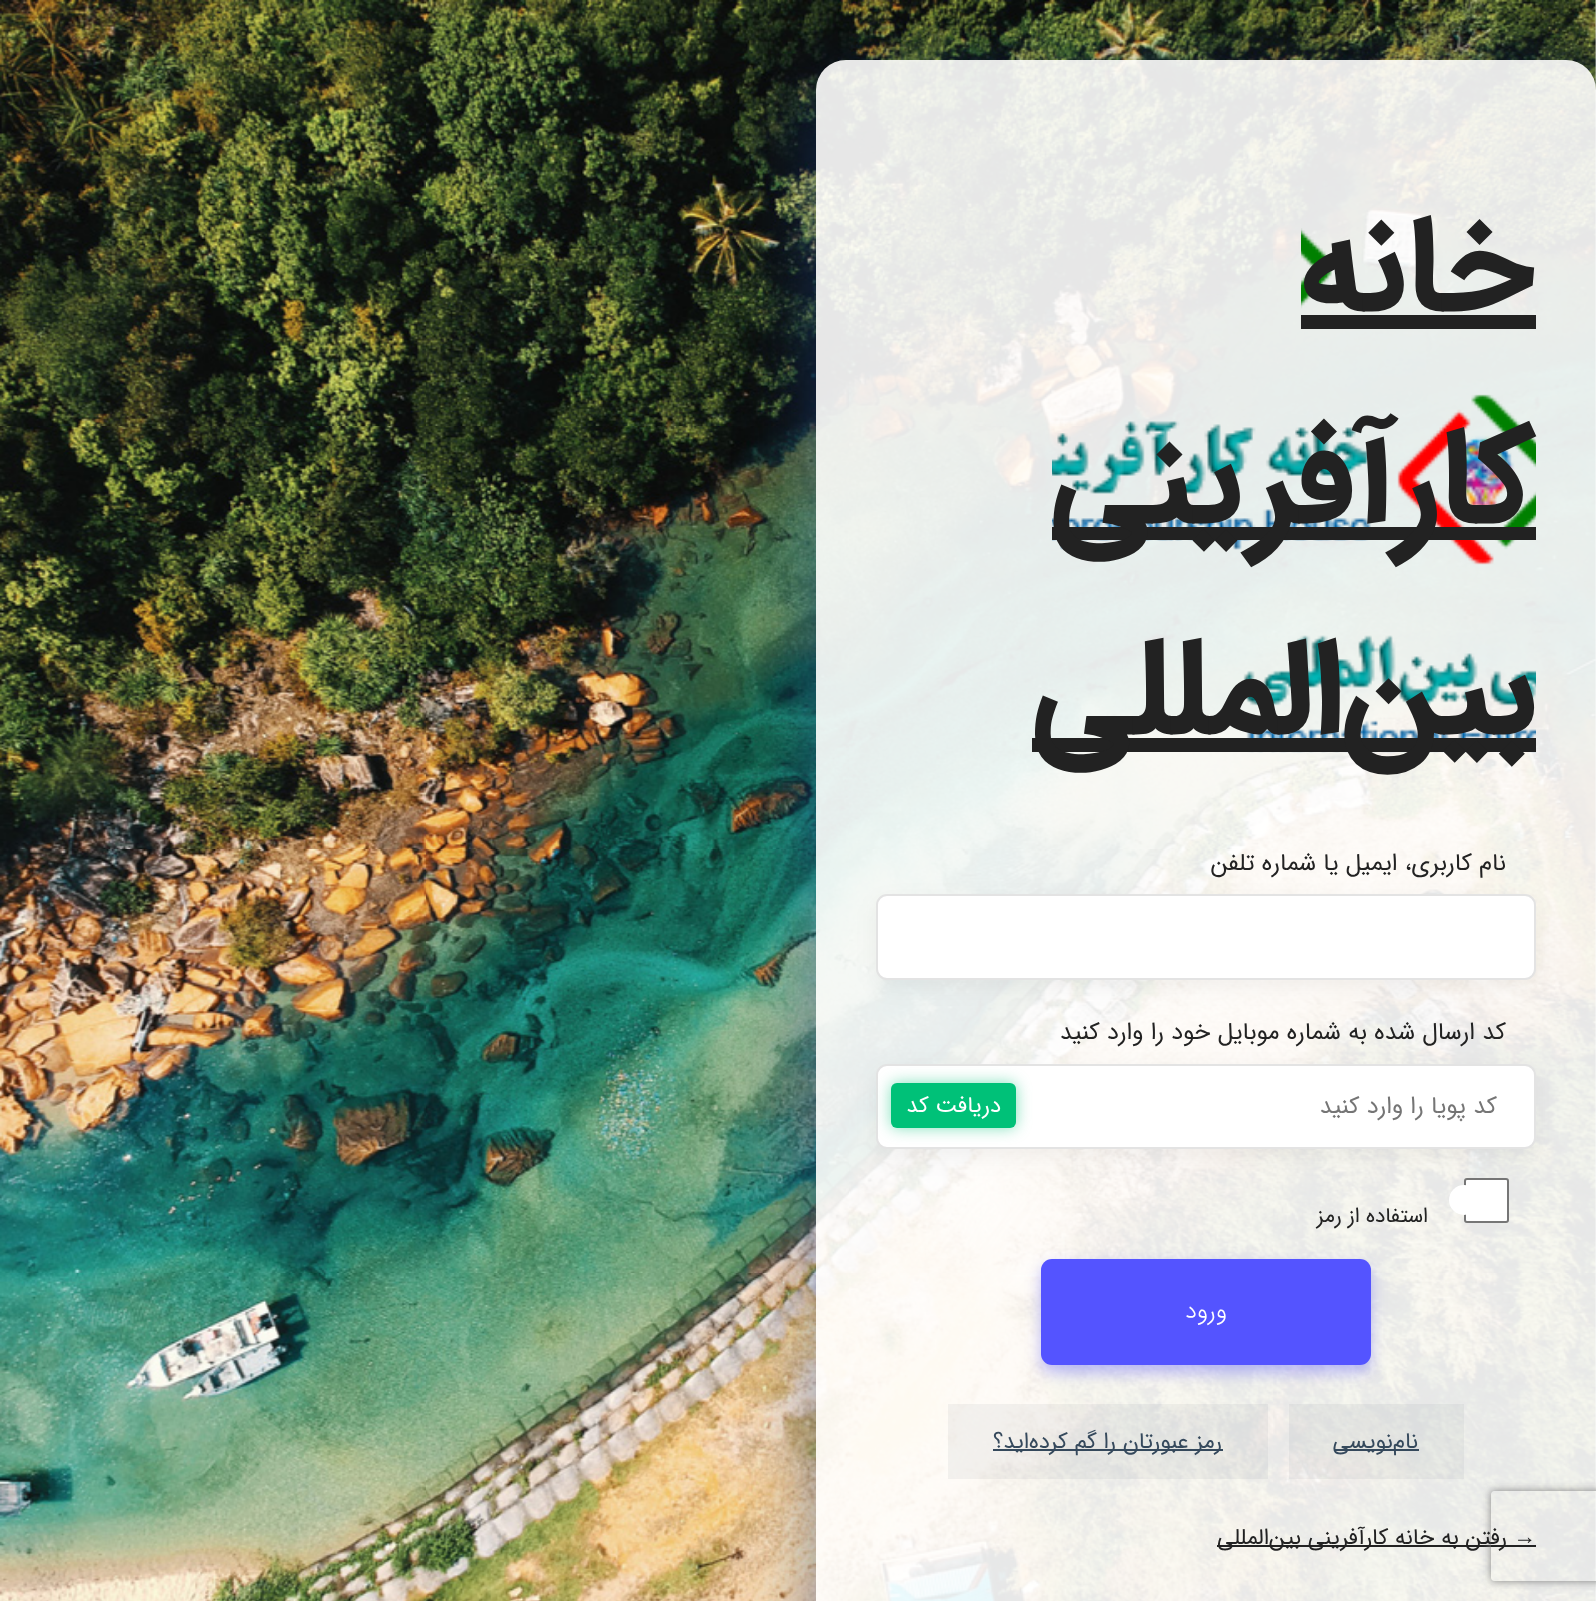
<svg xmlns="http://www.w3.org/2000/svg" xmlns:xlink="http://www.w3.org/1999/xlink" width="1596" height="1601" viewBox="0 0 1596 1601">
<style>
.cls-1{font:bold 135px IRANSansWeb;direction:rtl;fill:#222222}
.cls-2{font:24px IRANSansWeb;direction:rtl;fill:#222222}
.cls-3{font:24px IRANSansWeb;direction:rtl;fill:#757575}
.cls-4{font:22.5px IRANSansWeb;direction:rtl;fill:#ffffff}
.cls-5{font:21px IRANSansWeb;direction:rtl;fill:#222222}
.cls-6{font:300 24px IRANSansWeb;direction:rtl;fill:#ffffff}
.cls-7{font:22.5px IRANSansWeb;direction:rtl;fill:#35495c}
.cls-8{font:22.5px Liberation Serif;direction:rtl;fill:#222222}
.cls-9{font:22.5px IRANSansWeb;direction:rtl;fill:#222222}
</style>
<defs>
<clipPath id="clip1"><path d="M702 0H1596V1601H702ZM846 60H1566C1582.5 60 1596 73.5 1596 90V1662C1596 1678.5 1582.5 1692 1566 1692H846C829.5 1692 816 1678.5 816 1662V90C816 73.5 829.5 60 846 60Z" clip-rule="evenodd"/></clipPath>
<clipPath id="clip2"><path d="M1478 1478H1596V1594H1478ZM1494 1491H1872C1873.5 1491 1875 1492.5 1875 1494V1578C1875 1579.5 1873.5 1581 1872 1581H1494C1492.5 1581 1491 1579.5 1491 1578V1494C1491 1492.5 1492.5 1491 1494 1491Z" clip-rule="evenodd"/></clipPath>
</defs>
<rect width="100%" height="100%" fill="#ffffff"/>
<image xlink:href="image0.png" x="0" y="0" width="1596" height="1601"/>
<g clip-path="url(#clip1)">
<rect fill="#1c4c9c" fill-opacity="0.5" filter="blur(37.5px)" x="816" y="90" width="780" height="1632" rx="30"/>
</g>
<rect fill="#ffffff" fill-opacity="0.9" x="816" y="60" width="780" height="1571" rx="30"/>
<image xlink:href="image1.png" x="1052" y="228" width="484" height="525"/>
<rect fill="#222222" x="1301" y="315" width="235" height="14"/>
<rect fill="#222222" x="1052" y="527" width="484" height="13"/>
<rect fill="#222222" x="1032" y="738" width="504" height="14"/>
<rect fill="#000000" fill-opacity="0.05" filter="blur(11px)" x="876" y="902" width="660" height="85" rx="11"/>
<rect fill="#ffffff" stroke="#e3e3e3" stroke-width="2" x="877" y="895" width="658" height="84" rx="10"/>
<rect fill="#000000" fill-opacity="0.05" filter="blur(11px)" x="876" y="1071" width="660" height="86" rx="11"/>
<rect fill="#ffffff" stroke="#e3e3e3" stroke-width="2" x="877" y="1065" width="658" height="83" rx="10"/>
<rect fill="#00c178" fill-opacity="0.5" filter="blur(7.5px)" x="891" y="1083" width="125" height="45" rx="6"/>
<rect fill="#00c178" x="891" y="1083" width="125" height="45" rx="6"/>
<rect fill="#ffffff" stroke="#767676" stroke-width="2" x="1465" y="1179" width="43" height="43" rx="2"/>
<circle fill="#ffffff" cx="1464" cy="1200" r="15"/>
<rect fill="#5454ff" fill-opacity="0.38" filter="blur(7.5px)" x="1041" y="1266" width="330" height="107" rx="11"/>
<rect fill="#5454ff" x="1041" y="1259" width="330" height="106" rx="11"/>
<rect fill="#35495c" fill-opacity="0.06" x="1289" y="1404" width="175" height="75"/>
<rect fill="#35495c" x="1334" y="1449" width="85" height="2"/>
<rect fill="#35495c" fill-opacity="0.06" x="948" y="1404" width="320" height="75"/>
<rect fill="#35495c" x="993" y="1449" width="230" height="2"/>
<rect fill="#222222" x="1217" y="1545" width="319" height="2"/>
<g clip-path="url(#clip2)">
<rect fill="#808080" filter="blur(4px)" x="1491" y="1491" width="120" height="90" rx="3"/>
</g>
<text class="cls-1"><tspan x="1536" y="308">خانه</tspan><tspan x="1536" y="520">کارآفرینی</tspan><tspan x="1536" y="731">بین‌المللی</tspan></text>
<text class="cls-2" x="1506" y="870">نام کاربری، ایمیل یا شماره تلفن</text>
<text class="cls-2" x="1506" y="1039">کد ارسال شده به شماره موبایل خود را وارد کنید</text>
<text class="cls-3" x="1497" y="1113">کد پویا را وارد کنید</text>
<text class="cls-4" x="1001" y="1112">دریافت کد</text>
<text class="cls-5" x="1428" y="1222">استفاده از رمز</text>
<text class="cls-6" x="1227" y="1318">ورود</text>
<text class="cls-7" x="1418" y="1448">نام‌نویسی</text>
<text class="cls-7" x="1222" y="1448">رمز عبورتان را گم کرده‌اید؟</text>
<text class="cls-8" x="1536" y="1544">→</text>
<text class="cls-9" x="1507" y="1544">رفتن به خانه کارآفرینی بین‌المللی</text>
</svg>
